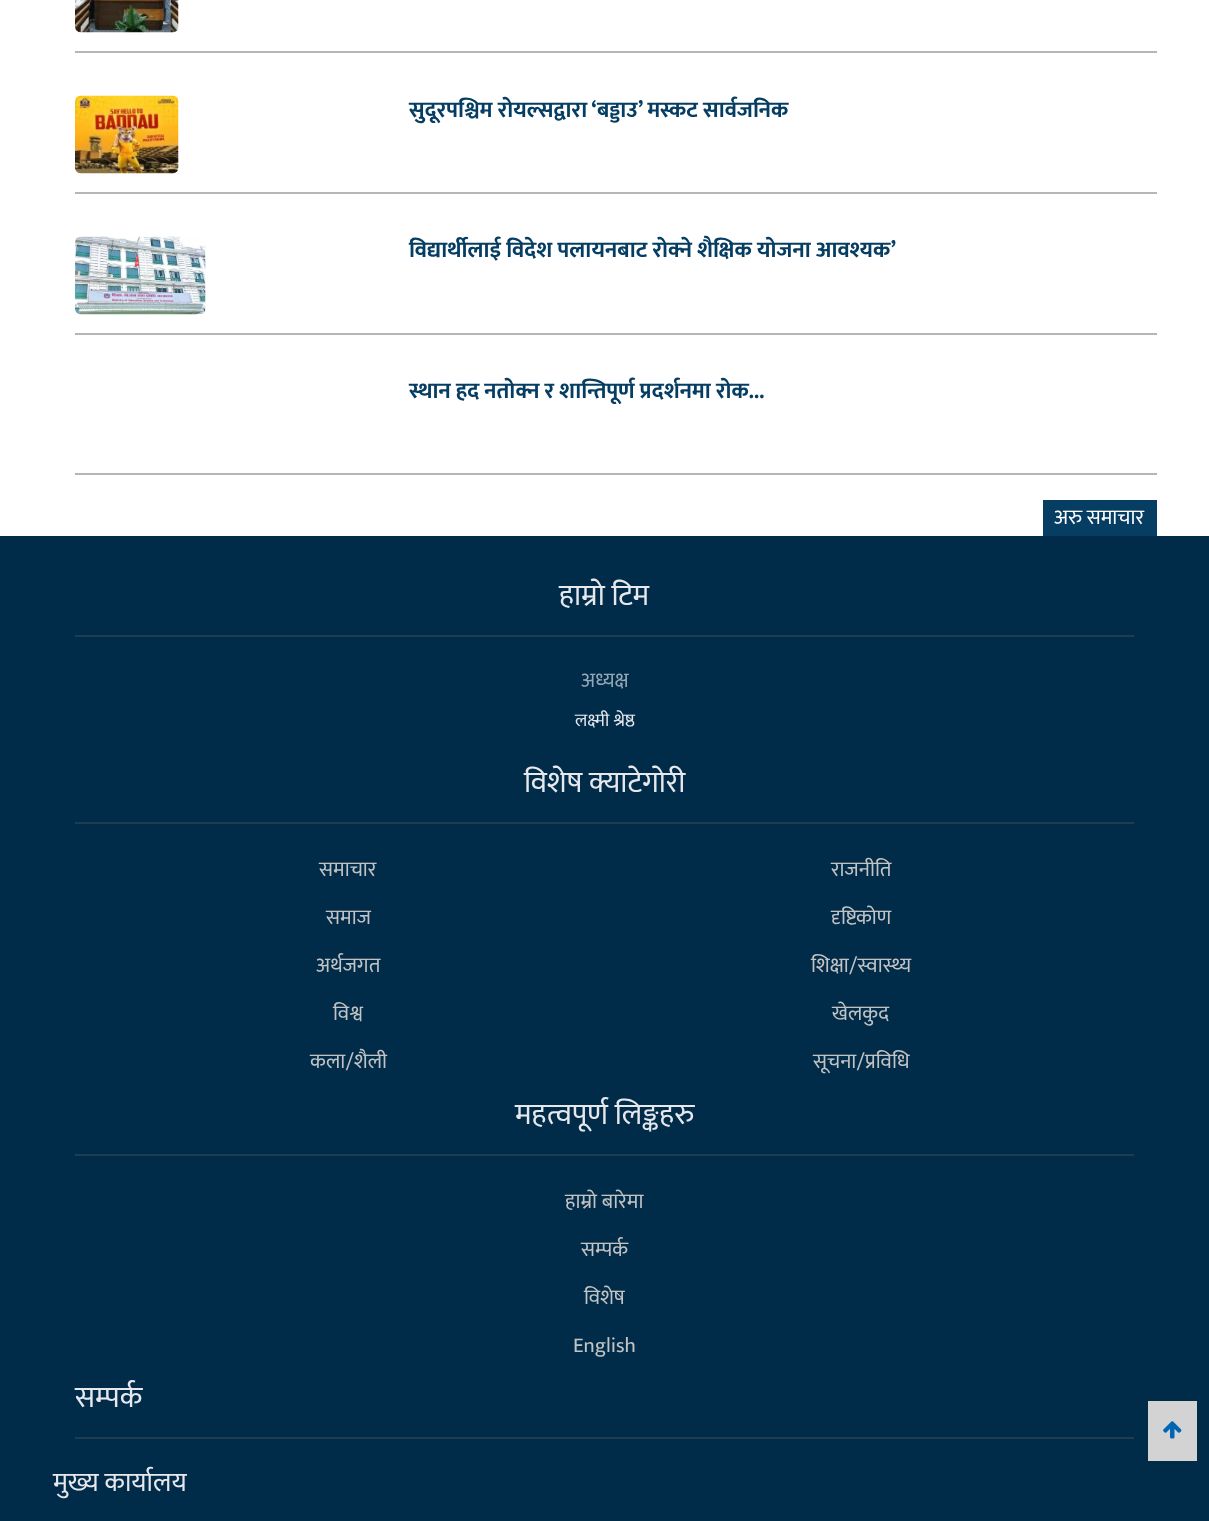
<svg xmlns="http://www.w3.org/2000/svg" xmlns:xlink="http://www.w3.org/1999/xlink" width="1209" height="1521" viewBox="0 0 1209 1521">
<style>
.cls-1{font:bold 22.5px Ek Mukta;fill:#063d63}
.cls-2{font:21px Ek Mukta;fill:#ffffff}
.cls-3{font:30px Ek Mukta;fill:#e7e8ec}
.cls-4{font:21px Ek Mukta;fill:#93a7b5}
.cls-5{font:18px Ek Mukta;fill:#e7e8ec}
.cls-6{font:21px Ek Mukta;fill:#c3c3c3}
.cls-7{font:27px Ek Mukta;fill:#e7e8ec}
</style>
<rect width="100%" height="100%" fill="#ffffff"/>
<rect fill="#b5b6b7" x="75" y="51" width="1082" height="2"/>
<image xlink:href="image0.png" x="75" y="0" width="104" height="33"/>
<rect fill="#b5b6b7" x="75" y="192" width="1082" height="2"/>
<image xlink:href="image1.png" x="75" y="95" width="104" height="79"/>
<rect fill="#b5b6b7" x="75" y="333" width="1082" height="2"/>
<image xlink:href="image2.png" x="75" y="236" width="131" height="79"/>
<rect fill="#b5b6b7" x="75" y="473" width="1082" height="2"/>
<rect fill="#063d63" x="1043" y="500" width="114" height="36"/>
<rect fill="#002c4a" x="0" y="536" width="1209" height="985"/>
<rect fill="#203d50" x="75" y="635" width="1059" height="2"/>
<rect fill="#203d50" x="75" y="822" width="1059" height="2"/>
<rect fill="#203d50" x="75" y="1154" width="1059" height="2"/>
<rect fill="#203d50" x="75" y="1437" width="1059" height="2"/>
<rect fill="#d3d3d3" x="1148" y="1401" width="49" height="60"/>
<image xlink:href="image3.png" x="1163" y="1421" width="19" height="18"/>
<text class="cls-1" x="409" y="117">सुदूरपश्चिम रोयल्सद्वारा ‘बड्डाउ’ मस्कट सार्वजनिक</text>
<text class="cls-1" x="409" y="257">विद्यार्थीलाई विदेश पलायनबाट रोक्ने शैक्षिक योजना आवश्यक’</text>
<text class="cls-1" x="409" y="398">स्थान हद नतोक्न र शान्तिपूर्ण प्रदर्शनमा रोक...</text>
<text class="cls-2" x="1054" y="524">अरु समाचार</text>
<text class="cls-3" x="559" y="605">हाम्राे टिम</text>
<text class="cls-4" x="581" y="687">अध्यक्ष</text>
<text class="cls-5" x="575" y="726">लक्ष्मी श्रेष्ठ</text>
<text class="cls-3" x="524" y="792">विशेष क्याटेगाेरी</text>
<text class="cls-6" x="319" y="876">समाचार</text>
<text class="cls-6" x="831" y="876">राजनीति</text>
<text class="cls-6" x="326" y="924">समाज</text>
<text class="cls-6" x="831" y="924">दृष्टिकोण</text>
<text class="cls-6" x="316" y="972">अर्थजगत</text>
<text class="cls-6" x="811" y="972">शिक्षा/स्वास्थ्य</text>
<text class="cls-6" x="333" y="1020">विश्व</text>
<text class="cls-6" x="832" y="1020">खेलकुद</text>
<text class="cls-6" x="310" y="1068">कला/शैली</text>
<text class="cls-6" x="813" y="1068">सूचना/प्रविधि</text>
<text class="cls-3" x="515" y="1124">महत्वपूर्ण लिङ्कहरु</text>
<text class="cls-6" x="565" y="1208">हाम्राे बारेमा</text>
<text class="cls-6" x="581" y="1256">सम्पर्क</text>
<text class="cls-6" x="584" y="1304">विशेष</text>
<text class="cls-6" x="573" y="1352">English</text>
<text class="cls-3" x="75" y="1407">सम्पर्क</text>
<text class="cls-7" x="53" y="1491">मुख्य कार्यालय</text>
</svg>
